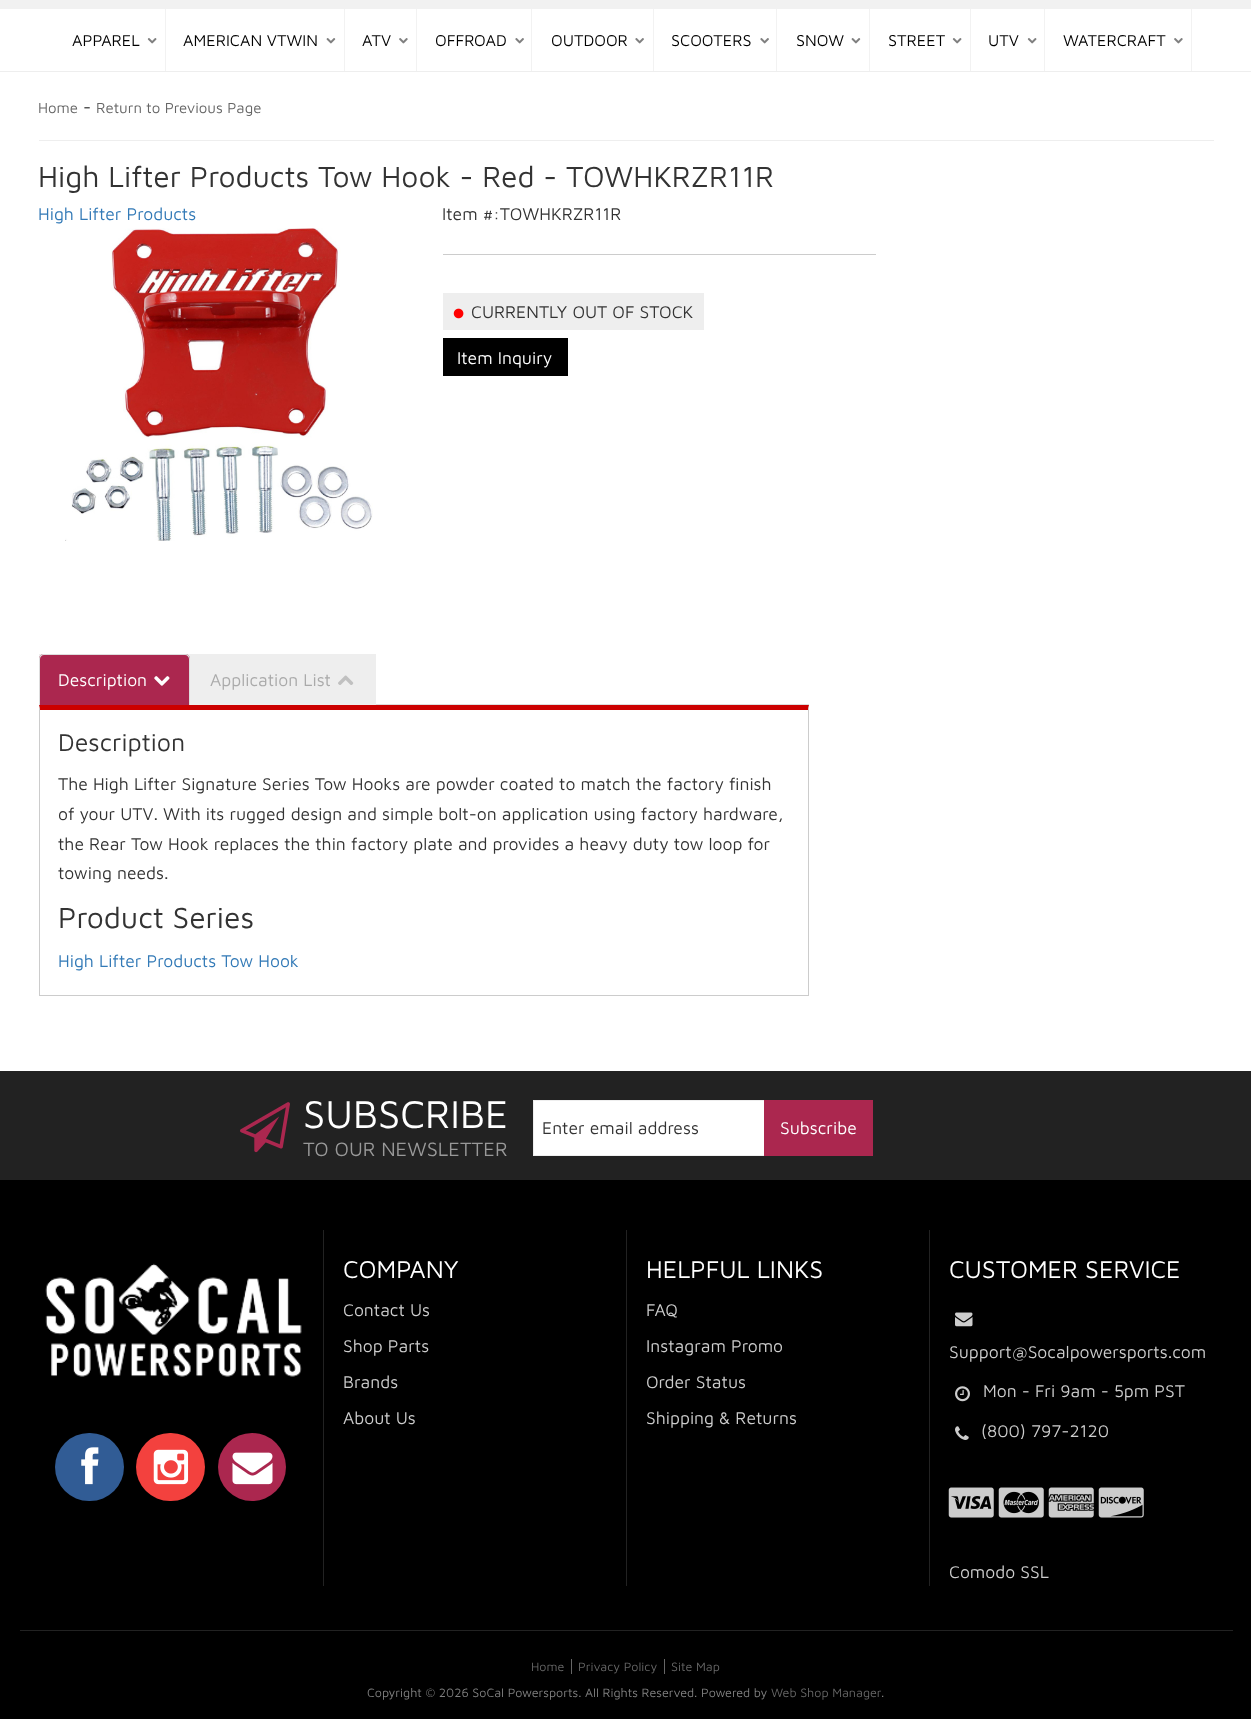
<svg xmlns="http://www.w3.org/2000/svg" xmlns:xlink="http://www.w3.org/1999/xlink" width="1251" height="1719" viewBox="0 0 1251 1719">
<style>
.cls-1{font:16.25px Maven Pro;fill:#000000}
.cls-2{font:15px Maven Pro;fill:#666666}
.cls-3{font:17.5px Maven Pro;fill:#333333}
.cls-4{font:30px Maven Pro;fill:#333333}
.cls-5{font:17.5px Maven Pro;fill:#337ab7}
.cls-6{font:17.5px Maven Pro;fill:#ffffff}
.cls-7{font:17.5px Maven Pro;fill:#aaaaaa}
.cls-8{font:25px Maven Pro;fill:#333333}
.cls-9{font:40px Maven Pro;fill:#ffffff}
.cls-10{font:20px Maven Pro;fill:#999999}
.cls-11{font:25px Maven Pro;fill:#ffffff}
.cls-12{font:17.5px Maven Pro;fill:#cccccc}
.cls-13{font:12.5px Maven Pro;fill:#666666}
.cls-14{font:12.5px Maven Pro;fill:#808080}
</style>
<rect width="100%" height="100%" fill="#ffffff"/>
<rect fill="#f1f1f1" x="0" y="0" width="1251" height="9"/>
<rect fill="#eeeeee" x="0" y="71" width="1251" height="1"/>
<rect fill="#f2f2f2" x="165" y="9" width="1" height="62"/>
<image xlink:href="image0.png" x="147" y="38" width="10" height="6"/>
<rect fill="#f2f2f2" x="344" y="9" width="1" height="62"/>
<image xlink:href="image1.png" x="326" y="38" width="10" height="6"/>
<rect fill="#f2f2f2" x="416" y="9" width="1" height="62"/>
<image xlink:href="image2.png" x="399" y="38" width="9" height="6"/>
<rect fill="#f2f2f2" x="531" y="9" width="1" height="62"/>
<image xlink:href="image3.png" x="515" y="38" width="9" height="6"/>
<rect fill="#f2f2f2" x="653" y="9" width="1" height="62"/>
<image xlink:href="image3.png" x="635" y="38" width="9" height="6"/>
<rect fill="#f2f2f2" x="776" y="9" width="1" height="62"/>
<image xlink:href="image3.png" x="760" y="38" width="9" height="6"/>
<rect fill="#f2f2f2" x="869" y="9" width="1" height="62"/>
<image xlink:href="image1.png" x="851" y="38" width="10" height="6"/>
<rect fill="#f2f2f2" x="970" y="9" width="1" height="62"/>
<image xlink:href="image0.png" x="952" y="38" width="10" height="6"/>
<rect fill="#f2f2f2" x="1044" y="9" width="1" height="62"/>
<image xlink:href="image0.png" x="1027" y="38" width="10" height="6"/>
<rect fill="#f2f2f2" x="1191" y="9" width="1" height="62"/>
<image xlink:href="image2.png" x="1174" y="38" width="9" height="6"/>
<rect fill="#eeeeee" x="39" y="140" width="1175" height="1"/>
<image xlink:href="image4.png" x="65" y="228" width="308" height="313"/>
<rect fill="#cccccc" x="443" y="254" width="433" height="1"/>
<rect fill="#eeeeee" x="443" y="293" width="261" height="37"/>
<image xlink:href="image5.png" x="453" y="308" width="11" height="11"/>
<rect fill="#000000" x="443" y="338" width="125" height="38"/>
<rect fill="#dddddd" x="376" y="704" width="433" height="1"/>
<rect fill="#eeeeee" x="39" y="654" width="151" height="5"/>
<path fill="#ab274f" d="M44 654H185C188 654 190 656 190 659V705H39V659C39 656 41 654 44 654Z"/>
<path fill="#dddddd" fill-rule="evenodd" d="M44 654H185C188 654 190 656 190 659V705H39V659C39 656 41 654 44 654ZM44 655H185C187 655 189 657 189 659V705H40V659C40 657 42 655 44 655Z"/>
<image xlink:href="image6.png" x="154" y="676" width="16" height="10"/>
<rect fill="#eeeeee" x="190" y="654" width="186" height="51"/>
<image xlink:href="image7.png" x="338" y="675" width="16" height="10"/>
<path fill="#cc0000" d="M39 705H809L808 710H40Z"/>
<path fill="#cccccc" d="M809 705V996L808 995V710Z"/>
<rect fill="#cccccc" x="39" y="995" width="770" height="1"/>
<path fill="#cccccc" d="M39 996V705L40 710V995Z"/>
<rect fill="#000000" x="0" y="1180" width="1251" height="539"/>
<rect fill="#222222" x="0" y="1071" width="1251" height="109"/>
<image xlink:href="image8.png" x="240" y="1102" width="50" height="51"/>
<rect fill="#ffffff" x="534" y="1101" width="230" height="54"/>
<rect fill="none" stroke="#eeeeee" x="533.5" y="1100.5" width="339" height="55"/>
<rect fill="#ab274f" x="764" y="1100" width="109" height="56"/>
<image xlink:href="image9.png" x="45" y="1263" width="257" height="114"/>
<rect fill="#315c95" x="55" y="1433" width="69" height="68" rx="34"/>
<image xlink:href="image10.png" x="81" y="1447" width="18" height="38"/>
<rect fill="#f3413e" x="136" y="1433" width="69" height="68" rx="34"/>
<image xlink:href="image11.png" x="153" y="1449" width="36" height="36"/>
<circle fill="#ab274f" cx="252" cy="1467" r="34"/>
<image xlink:href="image12.png" x="232" y="1452" width="41" height="33"/>
<rect fill="#222222" x="323" y="1230" width="1" height="356"/>
<rect fill="#222222" x="626" y="1230" width="1" height="356"/>
<rect fill="#222222" x="929" y="1230" width="1" height="356"/>
<image xlink:href="image13.png" x="955" y="1312" width="18" height="15"/>
<image xlink:href="image14.png" x="955" y="1386" width="15" height="16"/>
<image xlink:href="image15.png" x="955" y="1426" width="14" height="14"/>
<image xlink:href="image16.png" x="948" y="1487" width="46" height="31"/>
<image xlink:href="image17.png" x="998" y="1487" width="46" height="31"/>
<image xlink:href="image18.png" x="1048" y="1487" width="46" height="31"/>
<image xlink:href="image19.png" x="1098" y="1487" width="46" height="31"/>
<rect fill="#222222" x="20" y="1630" width="1213" height="1"/>
<rect fill="#666666" x="571" y="1659" width="1" height="15"/>
<rect fill="#666666" x="664" y="1659" width="1" height="15"/>
<text class="cls-1" x="72" y="46">APPAREL</text>
<text class="cls-1" x="183" y="46">AMERICAN VTWIN</text>
<text class="cls-1" x="362" y="46">ATV</text>
<text class="cls-1" x="435" y="46">OFFROAD</text>
<text class="cls-1" x="551" y="46">OUTDOOR</text>
<text class="cls-1" x="671" y="46">SCOOTERS</text>
<text class="cls-1" x="796" y="46">SNOW</text>
<text class="cls-1" x="888" y="46">STREET</text>
<text class="cls-1" x="988" y="46">UTV</text>
<text class="cls-1" x="1063" y="46">WATERCRAFT</text>
<text class="cls-2" x="38" y="113">Home</text>
<text class="cls-3" x="83" y="113">-</text>
<text class="cls-2" x="96" y="113">Return to Previous Page</text>
<text class="cls-4" x="38" y="187">High Lifter Products Tow Hook - Red - TOWHKRZR11R</text>
<text class="cls-5" x="38" y="220">High Lifter Products</text>
<text class="cls-3" x="442" y="220">Item #:TOWHKRZR11R</text>
<text class="cls-3" x="471" y="318">CURRENTLY OUT OF STOCK</text>
<text class="cls-6" x="457" y="364">Item Inquiry</text>
<text class="cls-6" x="58" y="686">Description</text>
<text class="cls-7" x="210" y="686">Application List</text>
<text class="cls-8" x="58" y="751">Description</text>
<text class="cls-3"><tspan x="58" y="790">The High Lifter Signature Series Tow Hooks are powder coated to match the factory finish</tspan><tspan x="58" y="820">of your UTV. With its rugged design and simple bolt-on application using factory hardware,</tspan><tspan x="58" y="850">the Rear Tow Hook replaces the thin factory plate and provides a heavy duty tow loop for</tspan><tspan x="58" y="879">towing needs.</tspan></text>
<text class="cls-4" x="58" y="928">Product Series</text>
<text class="cls-5" x="58" y="967">High Lifter Products Tow Hook</text>
<text class="cls-9" x="303" y="1128">SUBSCRIBE</text>
<text class="cls-10" x="303" y="1156">TO OUR NEWSLETTER</text>
<text class="cls-3" x="542" y="1134">Enter email address</text>
<text class="cls-6" x="780" y="1134">Subscribe</text>
<text class="cls-11" x="343" y="1278">COMPANY</text>
<text class="cls-12" x="343" y="1316">Contact Us</text>
<text class="cls-12" x="343" y="1352">Shop Parts</text>
<text class="cls-12" x="343" y="1388">Brands</text>
<text class="cls-12" x="343" y="1424">About Us</text>
<text class="cls-11" x="646" y="1278">HELPFUL LINKS</text>
<text class="cls-12" x="646" y="1316">FAQ</text>
<text class="cls-12" x="646" y="1352">Instagram Promo</text>
<text class="cls-12" x="646" y="1388">Order Status</text>
<text class="cls-12" x="646" y="1424">Shipping &amp; Returns</text>
<text class="cls-11" x="949" y="1278">CUSTOMER SERVICE</text>
<text class="cls-12" x="949" y="1358">Support@Socalpowersports.com</text>
<text class="cls-12" x="983" y="1397">Mon - Fri 9am - 5pm PST</text>
<text class="cls-12" x="981" y="1437">(800) 797-2120</text>
<text class="cls-12" x="949" y="1578">Comodo SSL</text>
<text class="cls-13" x="531" y="1671">Home</text>
<text class="cls-13" x="578" y="1671">Privacy Policy</text>
<text class="cls-13" x="671" y="1671">Site Map</text>
<text class="cls-14" x="367" y="1697">Copyright © 2026 SoCal Powersports. All Rights Reserved. Powered by</text>
<text class="cls-13" x="771" y="1697">Web Shop Manager</text>
<text class="cls-14" x="881" y="1697">.</text>
</svg>
